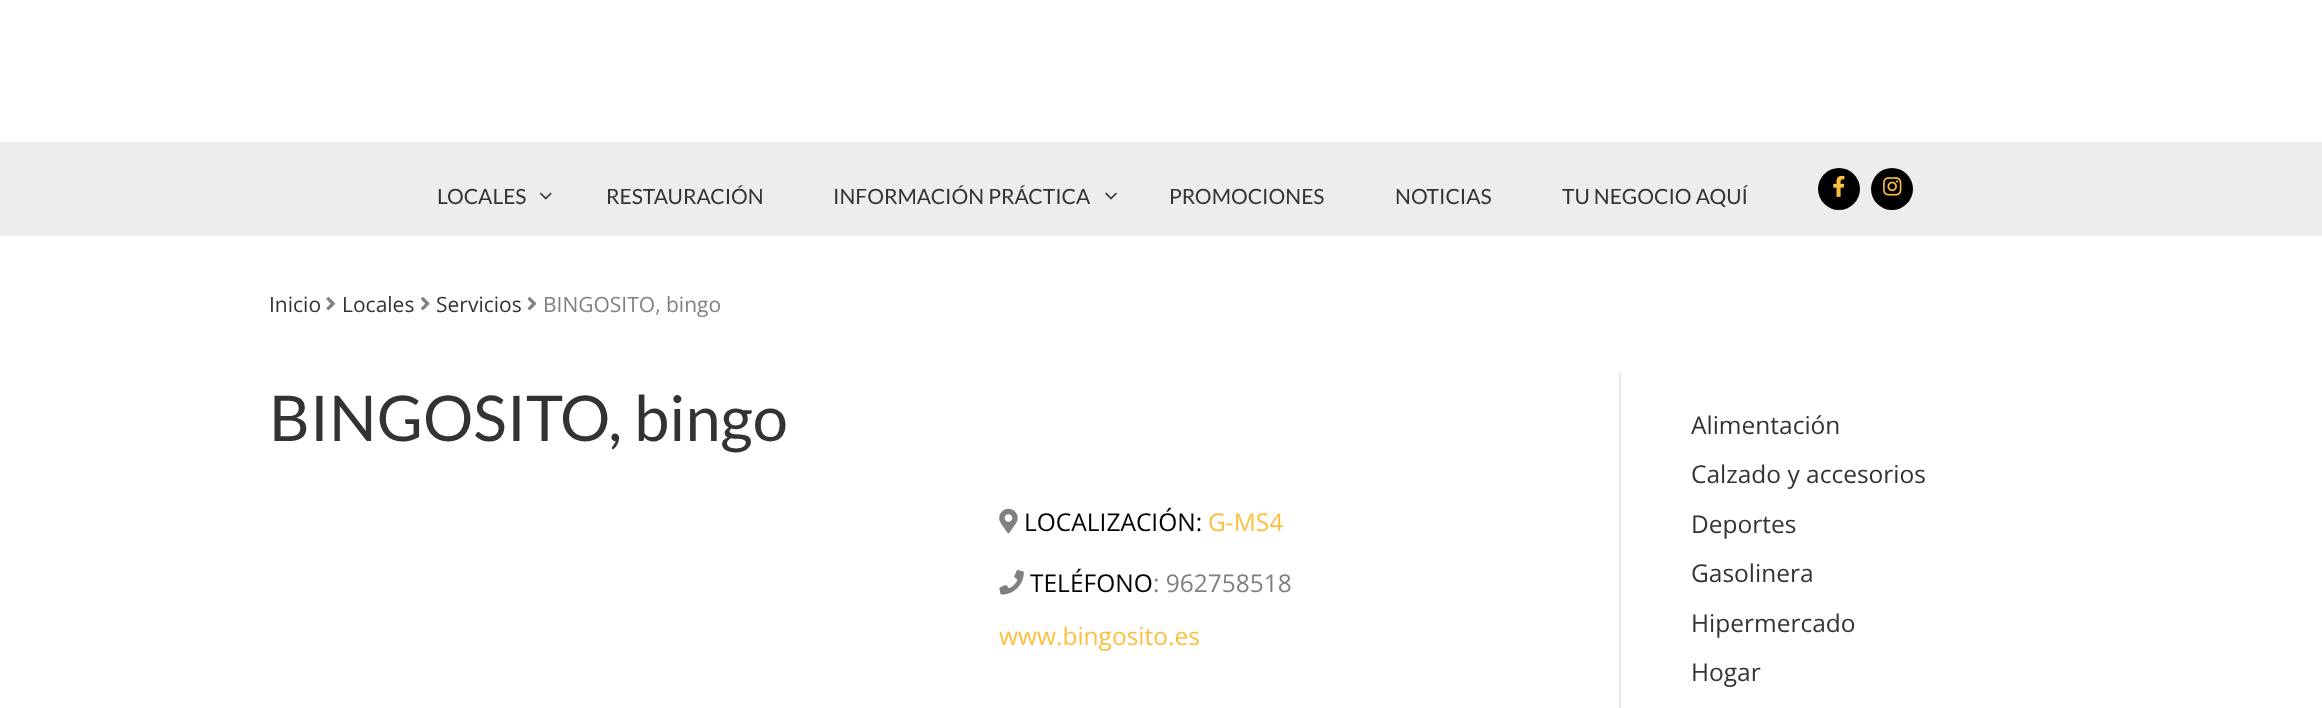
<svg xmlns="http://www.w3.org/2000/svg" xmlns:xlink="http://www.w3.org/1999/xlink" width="2322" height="708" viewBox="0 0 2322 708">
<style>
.cls-1{font:21px Lato;fill:#333333}
.cls-2{font:21px Open Sans;fill:#333333}
.cls-3{font:21px Open Sans;fill:#808080}
.cls-4{font:63px Lato;fill:#333333}
.cls-5{font:24.5px Open Sans;fill:#000000}
.cls-6{font:24.5px Open Sans;fill:#ffbe3e}
.cls-7{font:24.5px Open Sans;fill:#808080}
.cls-8{font:24.5px Open Sans;fill:#333333}
</style>
<rect width="100%" height="100%" fill="#ffffff"/>
<rect fill="#ededed" x="0" y="142" width="2322" height="94"/>
<image xlink:href="image0.png" x="539" y="192" width="13" height="8"/>
<image xlink:href="image1.png" x="1105" y="192" width="12" height="8"/>
<circle fill="#000000" cx="1839" cy="189" r="21"/>
<image xlink:href="image2.png" x="1833" y="175" width="12" height="22"/>
<circle fill="#000000" cx="1892" cy="189" r="21"/>
<image xlink:href="image3.png" x="1883" y="177" width="19" height="19"/>
<image xlink:href="image4.png" x="326" y="297" width="9" height="14"/>
<image xlink:href="image5.png" x="421" y="297" width="9" height="14"/>
<image xlink:href="image6.png" x="527" y="297" width="10" height="14"/>
<rect fill="#e6e6e6" x="1619" y="373" width="2" height="335"/>
<image xlink:href="image7.png" x="999" y="508" width="19" height="26"/>
<image xlink:href="image8.png" x="999" y="570" width="25" height="25"/>
<text class="cls-1" x="437" y="204">LOCALES</text>
<text class="cls-1" x="606" y="204">RESTAURACIÓN</text>
<text class="cls-1" x="833" y="204">INFORMACIÓN PRÁCTICA</text>
<text class="cls-1" x="1169" y="204">PROMOCIONES</text>
<text class="cls-1" x="1395" y="204">NOTICIAS</text>
<text class="cls-1" x="1562" y="204">TU NEGOCIO AQUÍ</text>
<text class="cls-2" x="269" y="312">Inicio</text>
<text class="cls-2" x="342" y="312">Locales</text>
<text class="cls-2" x="436" y="312">Servicios</text>
<text class="cls-3" x="543" y="312">BINGOSITO, bingo</text>
<text class="cls-4" x="269" y="441">BINGOSITO, bingo</text>
<text class="cls-5" x="1024" y="531">LOCALIZACIÓN:</text>
<text class="cls-6" x="1208" y="531">G-MS4</text>
<text class="cls-5" x="1030" y="592">TELÉFONO</text>
<text class="cls-7" x="1153" y="592">: 962758518</text>
<text class="cls-6" x="999" y="645">www.bingosito.es</text>
<text class="cls-8" x="1691" y="434">Alimentación</text>
<text class="cls-8" x="1691" y="483">Calzado y accesorios</text>
<text class="cls-8" x="1691" y="533">Deportes</text>
<text class="cls-8" x="1691" y="582">Gasolinera</text>
<text class="cls-8" x="1691" y="632">Hipermercado</text>
<text class="cls-8" x="1691" y="681">Hogar</text>
</svg>
